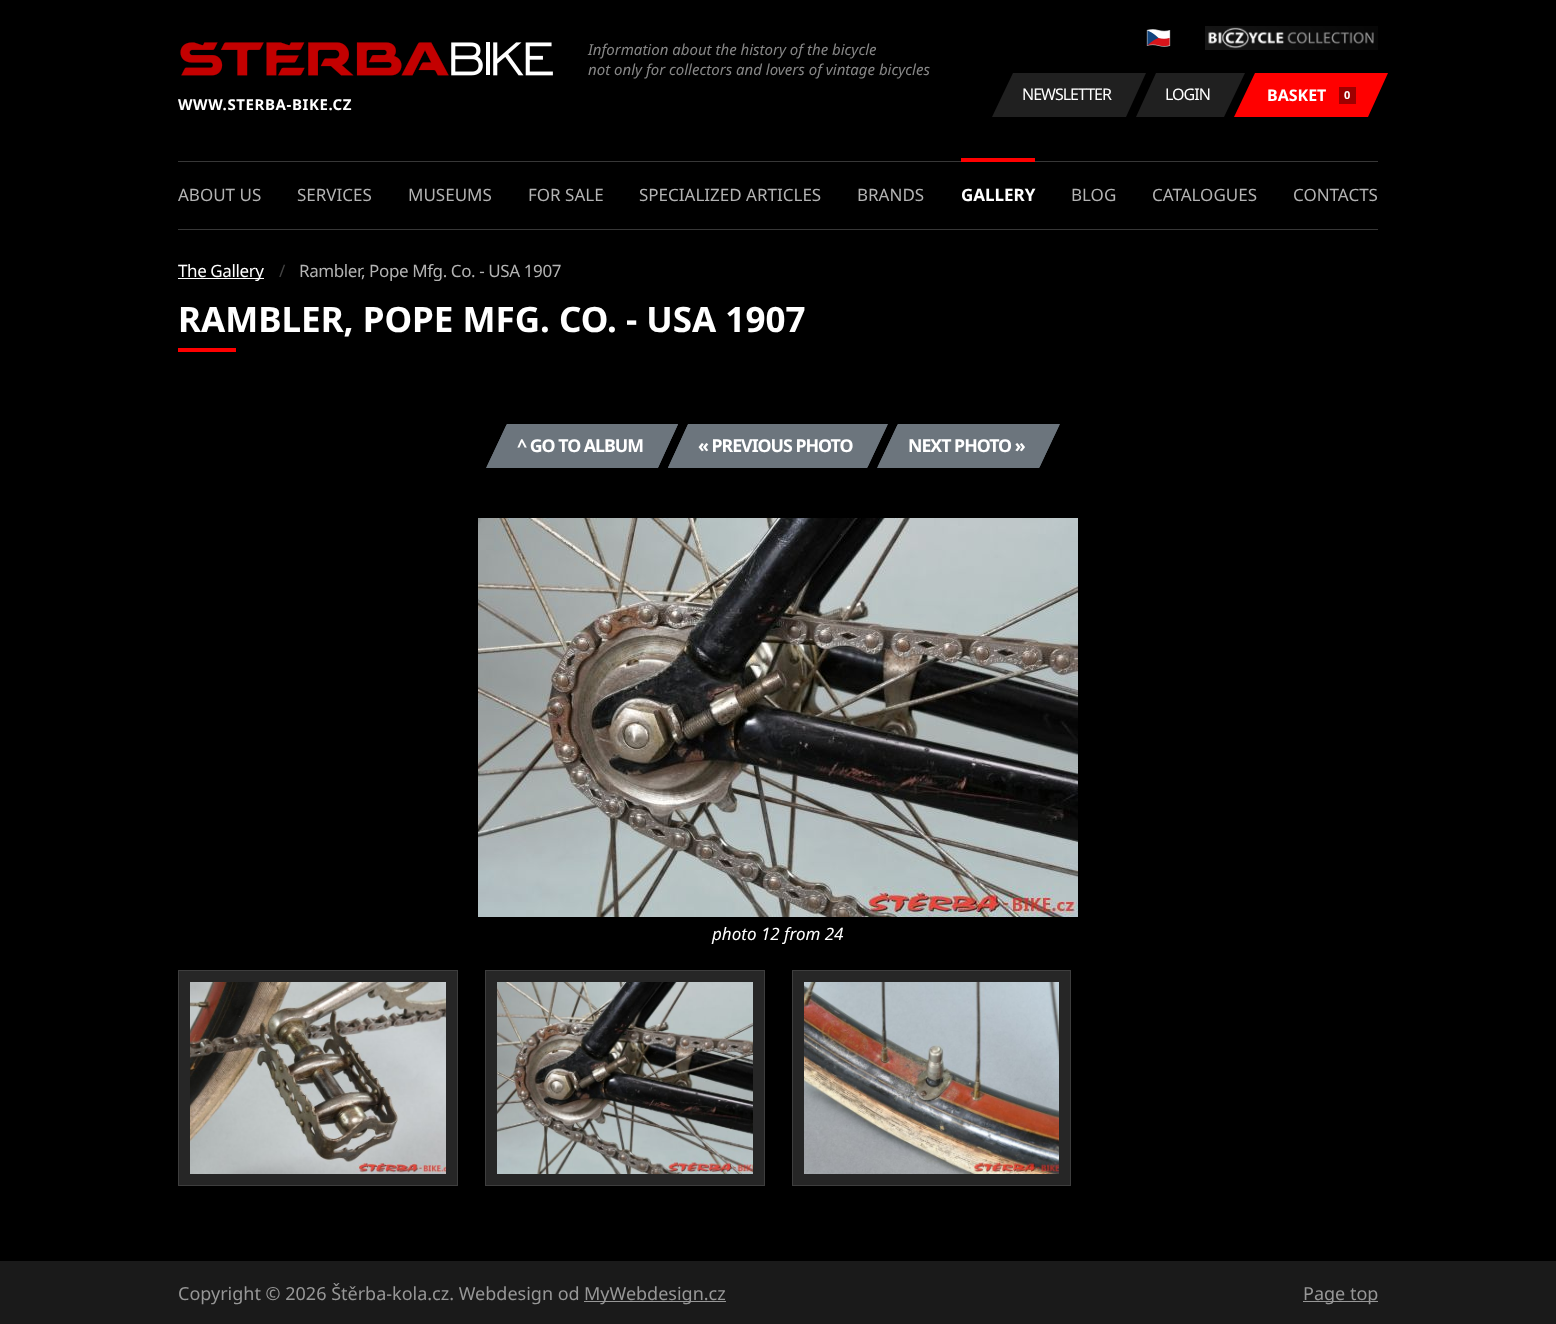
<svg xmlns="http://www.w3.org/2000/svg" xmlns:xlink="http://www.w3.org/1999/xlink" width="1556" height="1324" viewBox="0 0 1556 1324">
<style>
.cls-1{font:italic 15px Noto Sans;fill:#878787}
.cls-2{font:bold 15px Noto Sans;letter-spacing:0.6px;fill:#ffffff}
.cls-3{font:16px Noto Sans;letter-spacing:-1px;fill:#ffffff}
.cls-4{font:bold 16px Noto Sans;fill:#ffffff}
.cls-5{font:bold 11px Noto Sans;fill:#ffffff}
.cls-6{font:17px Noto Sans;fill:#b3b3b3}
.cls-7{font:bold 17px Noto Sans;fill:#ffffff}
.cls-8{font:17px Noto Sans;letter-spacing:-0.4px;fill:#ffffff}
.cls-9{font:17px Noto Sans;letter-spacing:-0.4px;fill:#434343}
.cls-10{font:17px Noto Sans;letter-spacing:-0.4px;fill:#b3b3b3}
.cls-11{font:bold 35px Noto Sans;fill:#ffffff}
.cls-12{font:bold 17.75px Noto Sans;letter-spacing:-1px;fill:#ffffff}
.cls-13{font:italic 17px Noto Sans;fill:#ffffff}
.cls-14{font:18px Noto Sans;fill:#979797}
</style>
<rect width="100%" height="100%" fill="#000000"/>
<image xlink:href="image0.png" x="180" y="42" width="373" height="34"/>
<image xlink:href="image1.png" x="1146" y="29" width="25" height="18"/>
<image xlink:href="image2.png" x="1205" y="26" width="173" height="24"/>
<path fill="#202020" d="M1013 73H1146L1126 117H992Z"/>
<path fill="#202020" d="M1156 73H1245L1224 117H1136Z"/>
<path fill="#ff0000" d="M1255 73H1388L1368 117H1234Z"/>
<rect fill="#9e0000" x="1339" y="87" width="17" height="17"/>
<rect fill="#373737" x="178" y="161" width="1200" height="1"/>
<rect fill="#373737" x="178" y="229" width="1200" height="1"/>
<rect fill="#ff0000" x="961" y="158" width="74" height="4"/>
<rect fill="#ffffff" x="178" y="278" width="86" height="1"/>
<rect fill="#ff0000" x="178" y="348" width="58" height="4"/>
<path fill="#6c757d" d="M507 424H678L658 468H486Z"/>
<path fill="none" stroke="#6c757d" d="M507 424.5H677.5L657.5 467.5H487Z"/>
<path fill="#6c757d" d="M688 424H888L867 468H668Z"/>
<path fill="none" stroke="#6c757d" d="M688.5 424.5H887L867 467.5H668.5Z"/>
<path fill="#6c757d" d="M898 424H1060L1039 468H877Z"/>
<path fill="none" stroke="#6c757d" d="M898 424.5H1059L1039 467.5H878Z"/>
<image xlink:href="image3.png" x="478" y="518" width="600" height="399"/>
<rect fill="#262626" stroke="#3e3e3e" x="178.5" y="970.5" width="279" height="215"/>
<image xlink:href="image4.png" x="190" y="982" width="256" height="192"/>
<rect fill="#262626" stroke="#3e3e3e" x="485.5" y="970.5" width="279" height="215"/>
<image xlink:href="image5.png" x="497" y="982" width="256" height="192"/>
<rect fill="#262626" stroke="#3e3e3e" x="792.5" y="970.5" width="278" height="215"/>
<image xlink:href="image6.png" x="804" y="982" width="255" height="192"/>
<rect fill="#1a1a1a" x="0" y="1261" width="1556" height="63"/>
<rect fill="#979797" x="584" y="1301" width="142" height="1"/>
<rect fill="#979797" x="1303" y="1301" width="75" height="1"/>
<text class="cls-1"><tspan x="588" y="55">Information about the history of the bicycle</tspan><tspan x="588" y="75">not only for collectors and lovers of vintage bicycles</tspan></text>
<text class="cls-2" x="178" y="110">WWW.STERBA-BIKE.CZ</text>
<text class="cls-3" x="1022" y="100">NEWSLETTER</text>
<text class="cls-3" x="1165" y="100">LOGIN</text>
<text class="cls-4" x="1267" y="101">BASKET</text>
<text class="cls-5" x="1344" y="99">0</text>
<text class="cls-6" x="178" y="201">ABOUT US</text>
<text class="cls-6" x="297" y="201">SERVICES</text>
<text class="cls-6" x="408" y="201">MUSEUMS</text>
<text class="cls-6" x="528" y="201">FOR SALE</text>
<text class="cls-6" x="639" y="201">SPECIALIZED ARTICLES</text>
<text class="cls-6" x="857" y="201">BRANDS</text>
<text class="cls-7" x="961" y="201">GALLERY</text>
<text class="cls-6" x="1071" y="201">BLOG</text>
<text class="cls-6" x="1152" y="201">CATALOGUES</text>
<text class="cls-6" x="1293" y="201">CONTACTS</text>
<text class="cls-8" x="178" y="277">The Gallery</text>
<text class="cls-9" x="279" y="277">/</text>
<text class="cls-10" x="299" y="277">Rambler, Pope Mfg. Co. - USA 1907</text>
<text class="cls-11" x="178" y="332">RAMBLER, POPE MFG. CO. - USA 1907</text>
<text class="cls-12" x="517" y="452">^ GO TO ALBUM</text>
<text class="cls-12" x="698" y="452">« PREVIOUS PHOTO</text>
<text class="cls-12" x="908" y="452">NEXT PHOTO »</text>
<text class="cls-13" x="712" y="940">photo 12 from 24</text>
<text class="cls-14" x="178" y="1300">Copyright © 2026 Štěrba-kola.cz. Webdesign od</text>
<text class="cls-14" x="584" y="1300">MyWebdesign.cz</text>
<text class="cls-14" x="1303" y="1300">Page top</text>
</svg>
